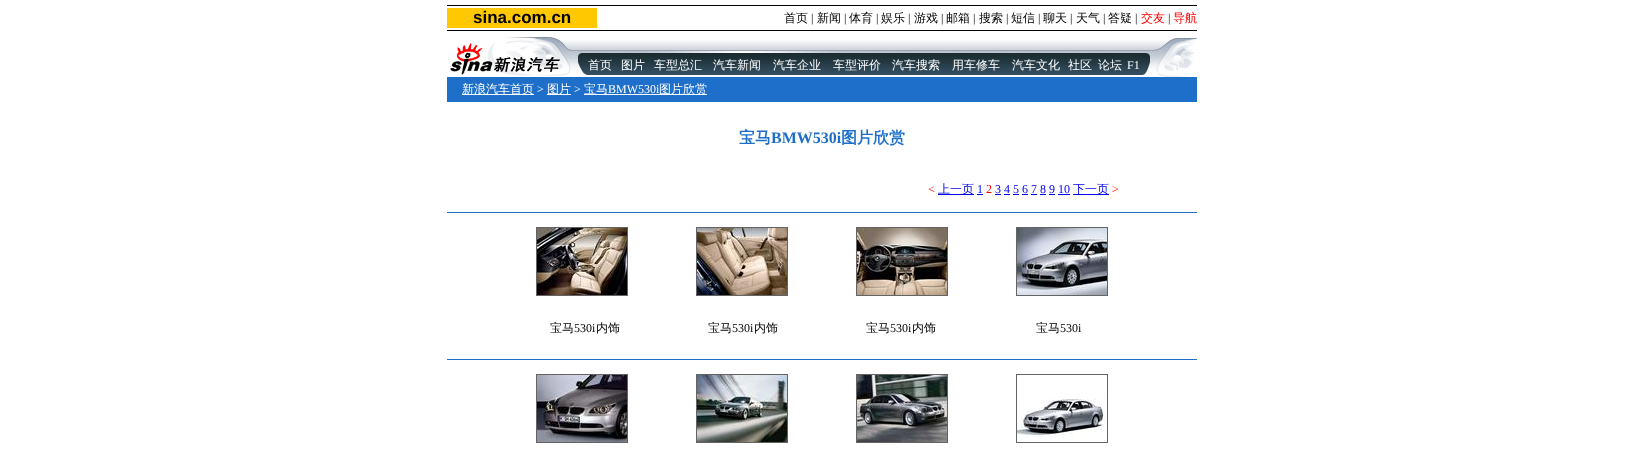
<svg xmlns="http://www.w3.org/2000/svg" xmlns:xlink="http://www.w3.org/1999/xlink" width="1644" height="453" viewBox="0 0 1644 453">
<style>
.cls-1{font:bold 17px Liberation Sans;fill:#000000}
.cls-2{font:500 12px WenQuanYi Zen Hei;fill:#000000}
.cls-3{font:12px Liberation Serif;fill:#000000}
.cls-4{font:500 12px WenQuanYi Zen Hei;fill:#ff0000}
.cls-5{font:500 12px WenQuanYi Zen Hei;fill:#ffffff}
.cls-6{font:12px Liberation Serif;fill:#ffffff}
.cls-7{font:bold 16px WenQuanYi Zen Hei;fill:#1e6fca}
.cls-8{font:bold 16px Liberation Serif;fill:#1e6fca}
.cls-9{font:12px Liberation Serif;fill:#ff0000}
.cls-10{font:500 12px WenQuanYi Zen Hei;fill:#0000ee}
.cls-11{font:12px Liberation Serif;fill:#0000ee}
</style>
<rect width="100%" height="100%" fill="#ffffff"/>
<rect fill="#000000" x="447" y="5" width="750" height="1"/>
<rect fill="#ffc800" x="447" y="8" width="150" height="20"/>
<rect fill="#000000" x="447" y="30" width="750" height="1"/>
<image xlink:href="image0.png" x="450" y="37" width="128" height="39"/>
<image xlink:href="image1.png" x="578" y="40" width="572" height="13"/>
<image xlink:href="image2.png" x="579" y="51" width="372" height="2"/>
<image xlink:href="image3.png" x="588" y="53" width="554" height="22"/>
<image xlink:href="image4.png" x="578" y="53" width="10" height="22"/>
<image xlink:href="image5.png" x="1142" y="53" width="8" height="22"/>
<image xlink:href="image6.png" x="1150" y="38" width="47" height="39"/>
<rect fill="#1e6fca" x="447" y="77" width="750" height="25"/>
<rect fill="#ffffff" x="462" y="94" width="72" height="1"/>
<rect fill="#ffffff" x="547" y="94" width="24" height="1"/>
<rect fill="#ffffff" x="584" y="94" width="123" height="1"/>
<rect fill="#0000ee" x="938" y="194" width="36" height="1"/>
<rect fill="#0000ee" x="977" y="194" width="6" height="1"/>
<rect fill="#0000ee" x="995" y="194" width="6" height="1"/>
<rect fill="#0000ee" x="1004" y="194" width="6" height="1"/>
<rect fill="#0000ee" x="1013" y="194" width="6" height="1"/>
<rect fill="#0000ee" x="1022" y="194" width="6" height="1"/>
<rect fill="#0000ee" x="1031" y="194" width="6" height="1"/>
<rect fill="#0000ee" x="1040" y="194" width="6" height="1"/>
<rect fill="#0000ee" x="1049" y="194" width="6" height="1"/>
<rect fill="#0000ee" x="1058" y="194" width="12" height="1"/>
<rect fill="#0000ee" x="1073" y="194" width="36" height="1"/>
<rect fill="#1e6fca" x="447" y="212" width="750" height="1"/>
<rect fill="none" stroke="#646464" x="536.5" y="227.5" width="91" height="68"/>
<image xlink:href="image7.png" x="537" y="228" width="90" height="67"/>
<rect fill="none" stroke="#646464" x="696.5" y="227.5" width="91" height="68"/>
<image xlink:href="image8.png" x="697" y="228" width="90" height="67"/>
<rect fill="none" stroke="#646464" x="856.5" y="227.5" width="91" height="68"/>
<image xlink:href="image9.png" x="857" y="228" width="90" height="67"/>
<rect fill="none" stroke="#646464" x="1016.5" y="227.5" width="91" height="68"/>
<image xlink:href="image10.png" x="1017" y="228" width="90" height="67"/>
<rect fill="#1e6fca" x="447" y="359" width="750" height="1"/>
<rect fill="none" stroke="#646464" x="536.5" y="374.5" width="91" height="68"/>
<image xlink:href="image11.png" x="537" y="375" width="90" height="67"/>
<rect fill="none" stroke="#646464" x="696.5" y="374.5" width="91" height="68"/>
<image xlink:href="image12.png" x="697" y="375" width="90" height="67"/>
<rect fill="none" stroke="#646464" x="856.5" y="374.5" width="91" height="68"/>
<image xlink:href="image13.png" x="857" y="375" width="90" height="67"/>
<rect fill="none" stroke="#646464" x="1016.5" y="374.5" width="91" height="68"/>
<image xlink:href="image14.png" x="1017" y="399" width="88" height="40"/>
<text class="cls-1" x="473" y="23">sina.com.cn</text>
<text class="cls-2" x="784" y="22">首页</text>
<text class="cls-3" x="811" y="22">|</text>
<text class="cls-2" x="817" y="22">新闻</text>
<text class="cls-3" x="844" y="22">|</text>
<text class="cls-2" x="849" y="22">体育</text>
<text class="cls-3" x="876" y="22">|</text>
<text class="cls-2" x="881" y="22">娱乐</text>
<text class="cls-3" x="908" y="22">|</text>
<text class="cls-2" x="914" y="22">游戏</text>
<text class="cls-3" x="941" y="22">|</text>
<text class="cls-2" x="946" y="22">邮箱</text>
<text class="cls-3" x="973" y="22">|</text>
<text class="cls-2" x="979" y="22">搜索</text>
<text class="cls-3" x="1006" y="22">|</text>
<text class="cls-2" x="1011" y="22">短信</text>
<text class="cls-3" x="1038" y="22">|</text>
<text class="cls-2" x="1043" y="22">聊天</text>
<text class="cls-3" x="1070" y="22">|</text>
<text class="cls-2" x="1076" y="22">天气</text>
<text class="cls-3" x="1103" y="22">|</text>
<text class="cls-2" x="1108" y="22">答疑</text>
<text class="cls-3" x="1135" y="22">|</text>
<text class="cls-4" x="1141" y="22">交友</text>
<text class="cls-3" x="1168" y="22">|</text>
<text class="cls-4" x="1173" y="22">导航</text>
<text class="cls-5" x="588" y="69">首页</text>
<text class="cls-5" x="621" y="69">图片</text>
<text class="cls-5" x="654" y="69">车型总汇</text>
<text class="cls-5" x="713" y="69">汽车新闻</text>
<text class="cls-5" x="773" y="69">汽车企业</text>
<text class="cls-5" x="833" y="69">车型评价</text>
<text class="cls-5" x="892" y="69">汽车搜索</text>
<text class="cls-5" x="952" y="69">用车修车</text>
<text class="cls-5" x="1012" y="69">汽车文化</text>
<text class="cls-5" x="1068" y="69">社区</text>
<text class="cls-5" x="1098" y="69">论坛</text>
<text class="cls-6" x="1127" y="69">F1</text>
<text class="cls-5" x="462" y="93">新浪汽车首页</text>
<text class="cls-6" x="537" y="93">&gt;</text>
<text class="cls-5" x="547" y="93">图片</text>
<text class="cls-6" x="574" y="93">&gt;</text>
<text class="cls-5" x="584" y="93">宝马</text>
<text class="cls-6" x="608" y="93">BMW530i</text>
<text class="cls-5" x="659" y="93">图片欣赏</text>
<text class="cls-7" x="739" y="143">宝马</text>
<text class="cls-8" x="771" y="143">BMW530i</text>
<text class="cls-7" x="841" y="143">图片欣赏</text>
<text class="cls-9" x="928" y="193">&lt;</text>
<text class="cls-10" x="938" y="193">上一页</text>
<text class="cls-11" x="977" y="193">1</text>
<text class="cls-9" x="986" y="193">2</text>
<text class="cls-11" x="995" y="193">3 4 5 6 7 8 9 10</text>
<text class="cls-10" x="1073" y="193">下一页</text>
<text class="cls-9" x="1112" y="193">&gt;</text>
<text class="cls-2" x="550" y="332">宝马</text>
<text class="cls-3" x="574" y="332">530i</text>
<text class="cls-2" x="596" y="332">内饰</text>
<text class="cls-2" x="708" y="332">宝马</text>
<text class="cls-3" x="732" y="332">530i</text>
<text class="cls-2" x="754" y="332">内饰</text>
<text class="cls-2" x="866" y="332">宝马</text>
<text class="cls-3" x="890" y="332">530i</text>
<text class="cls-2" x="912" y="332">内饰</text>
<text class="cls-2" x="1036" y="332">宝马</text>
<text class="cls-3" x="1060" y="332">530i</text>
</svg>
